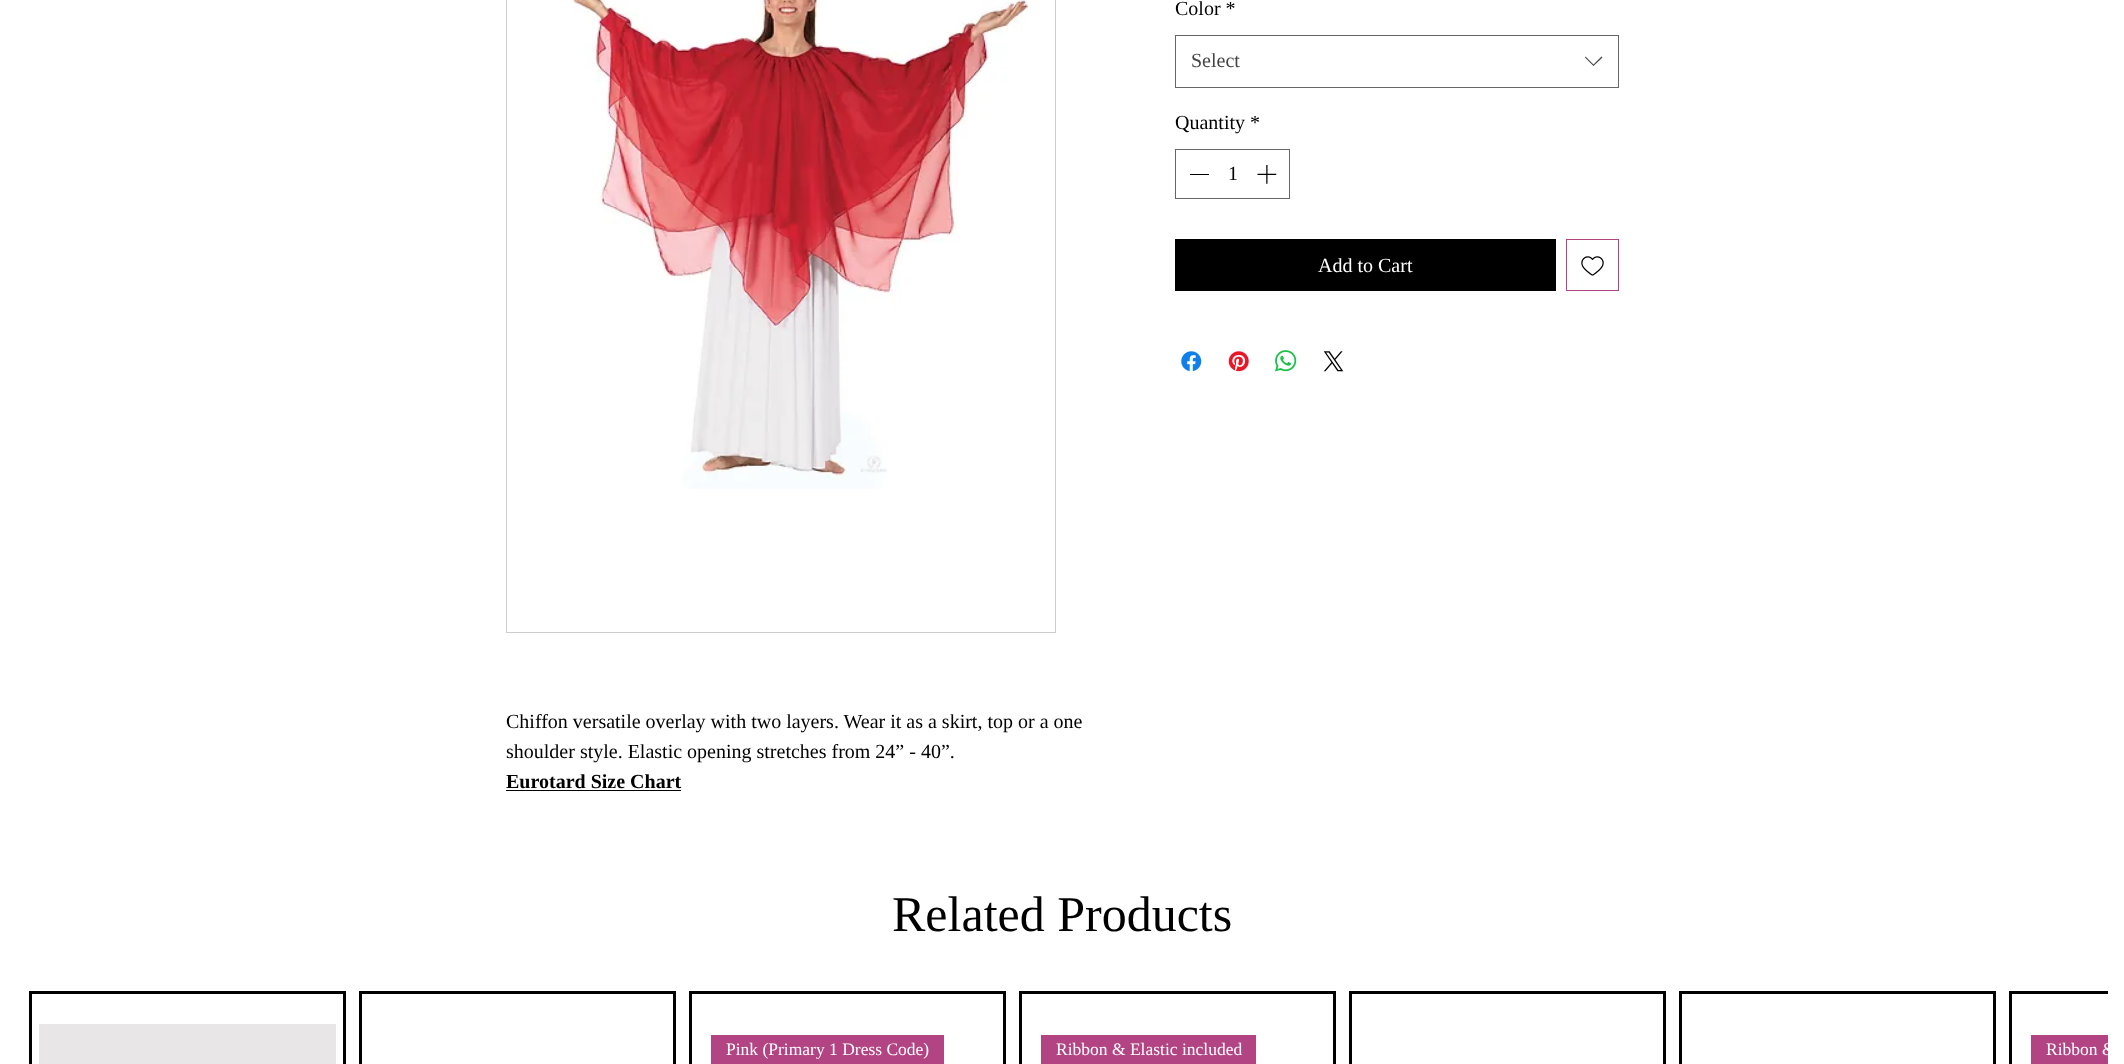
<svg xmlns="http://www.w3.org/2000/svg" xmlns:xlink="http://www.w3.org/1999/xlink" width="2124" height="1064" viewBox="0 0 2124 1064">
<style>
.cls-1{font:20px Liberation Serif;fill:#000000}
.cls-2{font:20px Liberation Serif;fill:#444444}
.cls-3{font:20px Liberation Serif;fill:#ffffff}
.cls-4{font:bold 20px Liberation Serif;fill:#000000}
.cls-5{font:50px Liberation Serif;fill:#000000}
.cls-6{font:17.5px Liberation Serif;fill:#ffffff}
</style>
<defs>
<clipPath id="clip1"><rect x="18" y="991" width="2090" height="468"/></clipPath>
<clipPath id="clip2"><rect x="2031" y="1035" width="77" height="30"/></clipPath>
</defs>
<rect width="100%" height="100%" fill="#ffffff"/>
<rect fill="none" stroke="#666666" x="1175.5" y="35.5" width="443" height="52"/>
<path fill="#444444" fill-rule="evenodd" d="M1601.5 56.5L1602.5 57.5L1593.5 66L1585 57.5L1585.5 56.5L1593.5 64.5Z"/>
<rect fill="none" stroke="#666666" x="1175.5" y="149.5" width="114" height="49"/>
<rect fill="#000000" x="1190" y="174" width="19" height="1"/>
<image xlink:href="image0.png" x="1257" y="165" width="20" height="19"/>
<rect fill="#000000" x="1175" y="239" width="381" height="52"/>
<rect fill="none" stroke="#b34484" x="1566.5" y="239.5" width="52" height="51"/>
<image xlink:href="image1.png" x="1581" y="256" width="23" height="20"/>
<image xlink:href="image2.png" x="1181" y="351" width="21" height="21"/>
<image xlink:href="image3.png" x="1228" y="351" width="21" height="21"/>
<image xlink:href="image4.png" x="1275" y="350" width="22" height="22"/>
<image xlink:href="image5.png" x="1323" y="351" width="21" height="21"/>
<rect fill="none" stroke="#cccccc" x="506.5" y="-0.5" width="549" height="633"/>
<image xlink:href="image6.png" x="573" y="0" width="455" height="489"/>
<rect fill="#000000" x="506" y="790" width="175" height="1"/>
<rect fill="none" stroke="#000000" stroke-width="3" x="30.5" y="992.5" width="314" height="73"/>
<rect fill="#e8e6e6" x="39" y="1024" width="297" height="40"/>
<rect fill="none" stroke="#000000" stroke-width="3" x="360.5" y="992.5" width="314" height="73"/>
<rect fill="none" stroke="#000000" stroke-width="3" x="690.5" y="992.5" width="314" height="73"/>
<rect fill="#b34484" x="711" y="1035" width="233" height="29"/>
<rect fill="none" stroke="#000000" stroke-width="3" x="1020.5" y="992.5" width="314" height="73"/>
<rect fill="#b34484" x="1041" y="1035" width="215" height="29"/>
<rect fill="none" stroke="#000000" stroke-width="3" x="1350.5" y="992.5" width="314" height="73"/>
<rect fill="none" stroke="#000000" stroke-width="3" x="1680.5" y="992.5" width="314" height="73"/>
<g clip-path="url(#clip1)">
<rect fill="none" stroke="#000000" stroke-width="3" x="2010.5" y="992.5" width="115" height="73"/>
</g>
<rect fill="#b34484" x="2031" y="1035" width="77" height="29"/>
<text class="cls-1" x="1175" y="15">Color *</text>
<text class="cls-2" x="1191" y="67">Select</text>
<text class="cls-1" x="1175" y="129">Quantity *</text>
<text class="cls-1" x="1228" y="180">1</text>
<text class="cls-3" x="1318" y="272">Add to Cart</text>
<text class="cls-1"><tspan x="506" y="728">Chiffon versatile overlay with two layers. Wear it as a skirt, top or a one</tspan><tspan x="506" y="758">shoulder style. Elastic opening stretches from 24” - 40”.</tspan></text>
<text class="cls-4" x="506" y="788">Eurotard Size Chart</text>
<text class="cls-5" x="892" y="931">Related Products</text>
<text class="cls-6" x="726" y="1055">Pink (Primary 1 Dress Code)</text>
<text class="cls-6" x="1056" y="1055">Ribbon &amp; Elastic included</text>
<g clip-path="url(#clip2)">
<text class="cls-6" x="2046" y="1055">Ribbon &amp;</text>
</g>
</svg>
